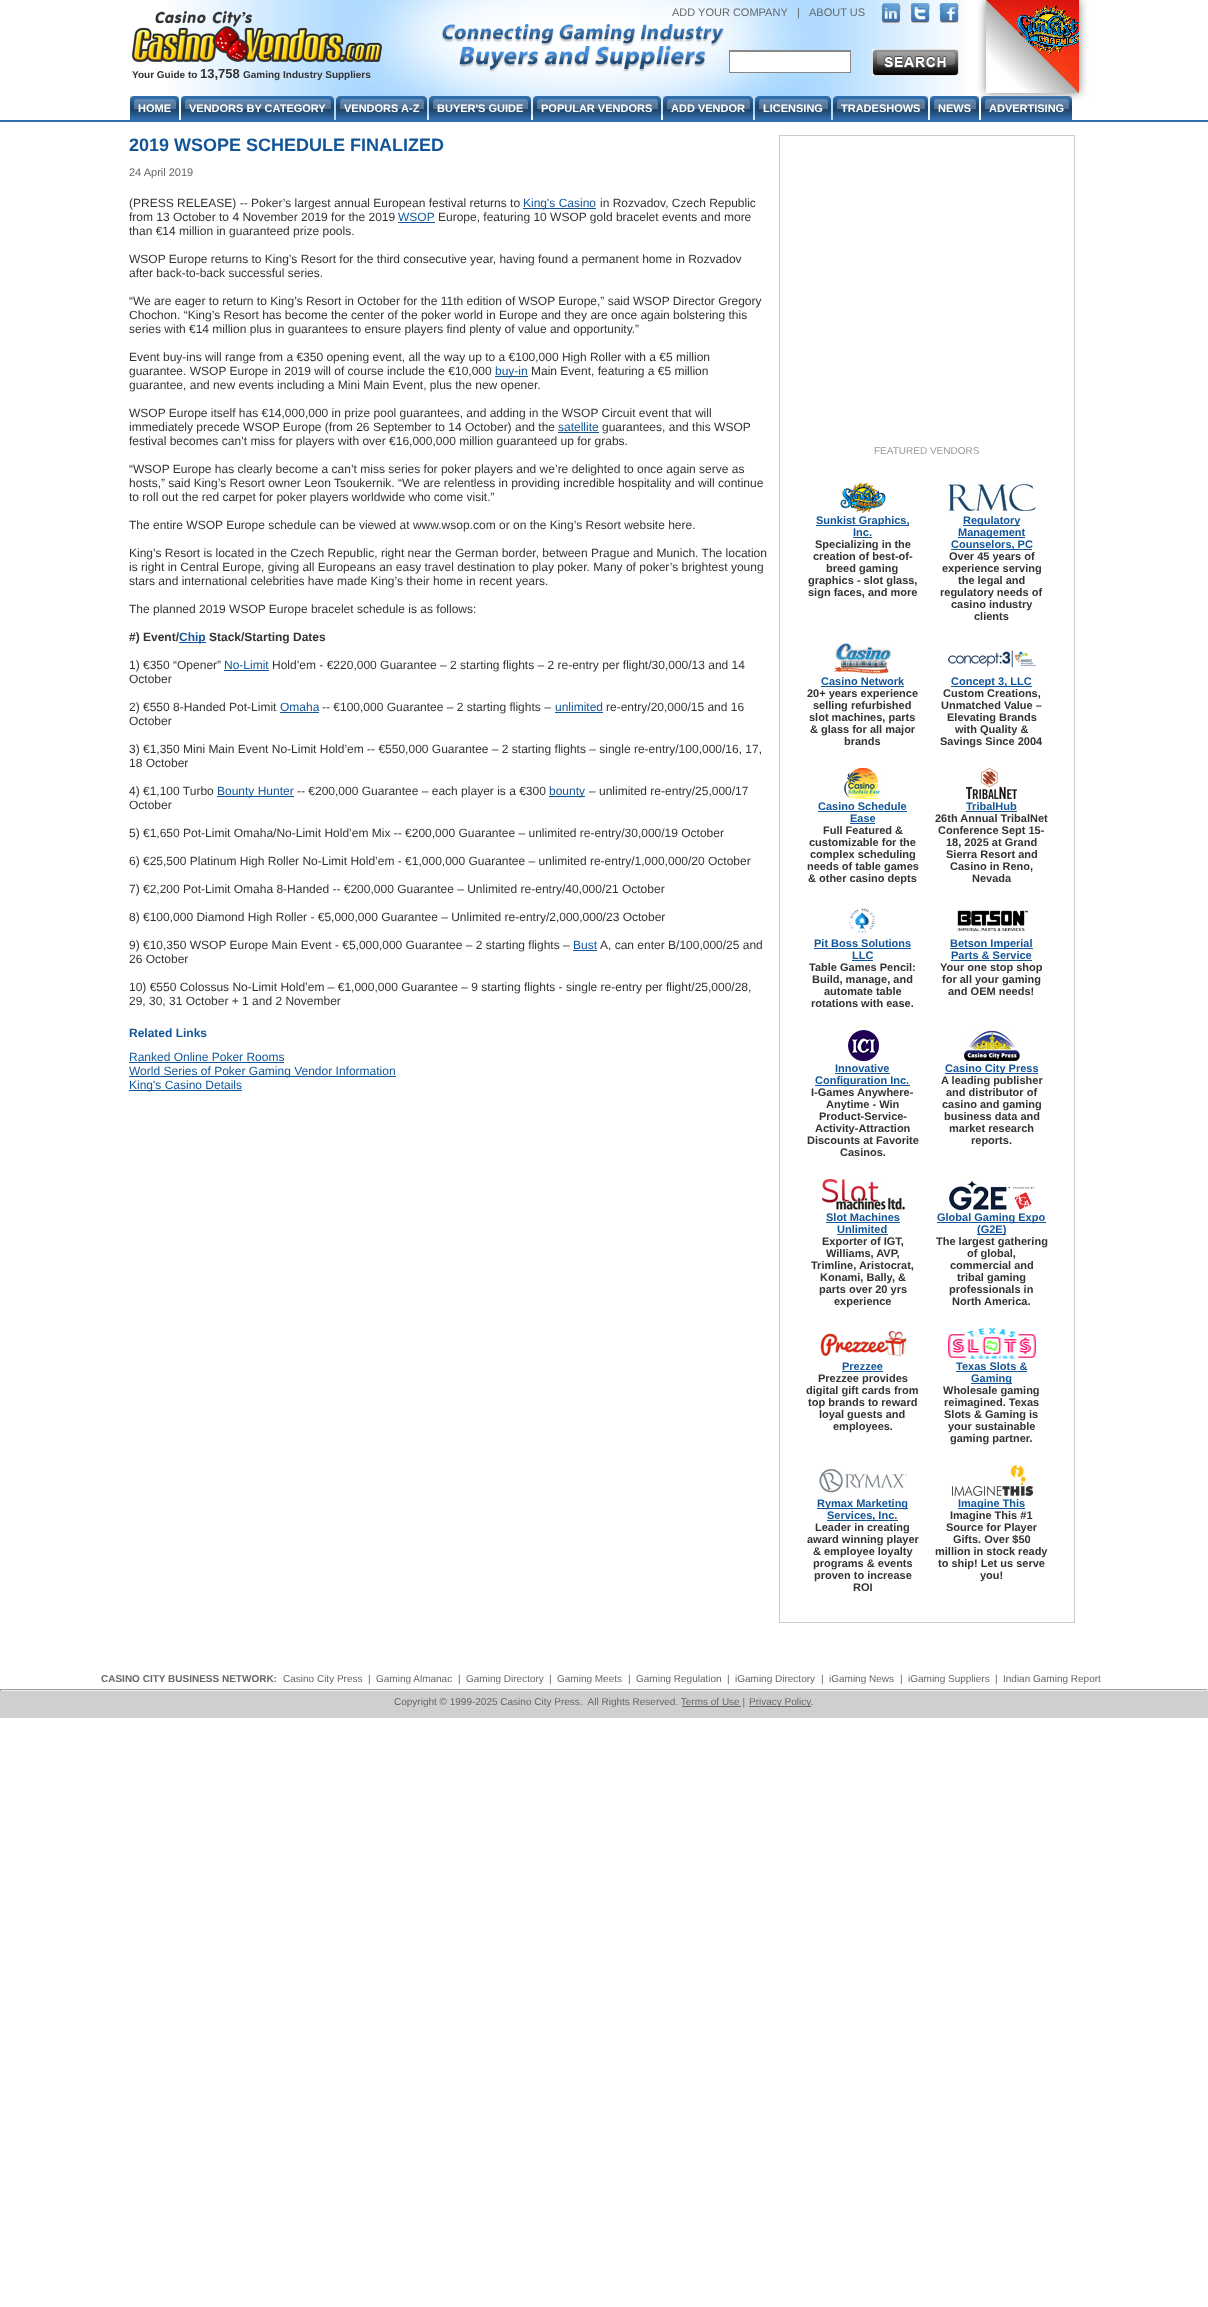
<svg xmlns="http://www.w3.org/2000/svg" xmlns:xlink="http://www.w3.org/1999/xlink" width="1208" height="2307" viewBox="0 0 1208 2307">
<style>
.cls-1{font:11px Liberation Sans;fill:#666666}
.cls-2{font:bold 10px Liberation Sans;fill:#333333}
.cls-3{font:bold 13px Liberation Sans;fill:#333333}
.cls-4{font:bold 11px Liberation Sans;fill:#ffffff}
.cls-5{font:bold 18px Liberation Sans;fill:#125699}
.cls-6{font:12px Liberation Sans;fill:#333333}
.cls-7{font:12px Liberation Sans;fill:#125699}
.cls-8{font:bold 12px Liberation Sans;fill:#333333}
.cls-9{font:bold 12px Liberation Sans;fill:#125699}
.cls-10{font:10px Liberation Sans;fill:#999999}
.cls-11{font:bold 11px Liberation Sans;fill:#125699}
.cls-12{font:bold 11px Liberation Sans;fill:#333333}
.cls-13{font:bold 10px Liberation Sans;fill:#666666}
.cls-14{font:10px Liberation Sans;fill:#666666}
</style>
<defs>
<clipPath id="clip1"><rect x="986" y="0" width="93" height="93"/></clipPath>
<linearGradient id="g1" gradientUnits="userSpaceOnUse" x1="1032" y1="47" x2="940" y2="139"><stop offset="0" stop-color="#afafaf"/><stop offset="0.29" stop-color="#ffffff"/></linearGradient>
</defs>
<rect width="100%" height="100%" fill="#ffffff"/>
<image xlink:href="image0.png" x="168" y="0" width="798" height="120"/>
<image xlink:href="image1.png" x="881" y="3" width="20" height="20"/>
<image xlink:href="image2.png" x="910" y="3" width="20" height="20"/>
<image xlink:href="image3.png" x="939" y="3" width="20" height="20"/>
<rect fill="#ffffff" x="730" y="52" width="120" height="20"/>
<rect fill="#888888" x="729" y="50" width="122" height="2"/>
<rect fill="#888888" x="850" y="50" width="1" height="23"/>
<rect fill="#888888" x="729" y="72" width="122" height="1"/>
<rect fill="#888888" x="729" y="50" width="1" height="23"/>
<image xlink:href="image4.png" x="872" y="49" width="87" height="27"/>
<image xlink:href="image5.png" x="132" y="11" width="250" height="51"/>
<image xlink:href="image6.png" x="130" y="96" width="6" height="24"/>
<image xlink:href="image7.png" x="136" y="96" width="37" height="24"/>
<image xlink:href="image8.png" x="173" y="96" width="6" height="24"/>
<image xlink:href="image6.png" x="181" y="96" width="6" height="24"/>
<image xlink:href="image9.png" x="187" y="96" width="141" height="24"/>
<image xlink:href="image8.png" x="328" y="96" width="6" height="24"/>
<image xlink:href="image6.png" x="336" y="96" width="6" height="24"/>
<image xlink:href="image10.png" x="342" y="96" width="79" height="24"/>
<image xlink:href="image8.png" x="421" y="96" width="6" height="24"/>
<image xlink:href="image6.png" x="429" y="96" width="6" height="24"/>
<image xlink:href="image11.png" x="435" y="96" width="90" height="24"/>
<image xlink:href="image8.png" x="525" y="96" width="6" height="24"/>
<image xlink:href="image6.png" x="533" y="96" width="6" height="24"/>
<image xlink:href="image12.png" x="539" y="96" width="116" height="24"/>
<image xlink:href="image8.png" x="655" y="96" width="6" height="24"/>
<image xlink:href="image6.png" x="663" y="96" width="6" height="24"/>
<image xlink:href="image13.png" x="669" y="96" width="78" height="24"/>
<image xlink:href="image8.png" x="747" y="96" width="6" height="24"/>
<image xlink:href="image6.png" x="755" y="96" width="6" height="24"/>
<image xlink:href="image14.png" x="761" y="96" width="64" height="24"/>
<image xlink:href="image8.png" x="825" y="96" width="6" height="24"/>
<image xlink:href="image6.png" x="833" y="96" width="6" height="24"/>
<image xlink:href="image15.png" x="839" y="96" width="83" height="24"/>
<image xlink:href="image8.png" x="922" y="96" width="6" height="24"/>
<image xlink:href="image6.png" x="930" y="96" width="6" height="24"/>
<image xlink:href="image7.png" x="936" y="96" width="37" height="24"/>
<image xlink:href="image8.png" x="973" y="96" width="6" height="24"/>
<image xlink:href="image6.png" x="981" y="96" width="6" height="24"/>
<image xlink:href="image10.png" x="987" y="96" width="79" height="24"/>
<image xlink:href="image8.png" x="1066" y="96" width="6" height="24"/>
<rect fill="#316eac" x="0" y="120" width="1208" height="2"/>
<rect fill="#808080" filter="blur(5px)" x="986" y="0" width="93" height="93"/>
<image xlink:href="image16.png" x="986" y="0" width="93" height="93"/>
<g clip-path="url(#clip1)">
<path fill="url(#g1)" d="M1079 93L986 185L894 93L986 0Z"/>
</g>
<rect fill="#125699" x="523" y="208" width="73" height="1"/>
<rect fill="#125699" x="398" y="222" width="37" height="1"/>
<rect fill="#125699" x="495" y="376" width="33" height="1"/>
<rect fill="#125699" x="558" y="432" width="41" height="1"/>
<rect fill="#125699" x="179" y="642" width="27" height="1"/>
<rect fill="#125699" x="224" y="670" width="45" height="1"/>
<rect fill="#125699" x="280" y="712" width="39" height="1"/>
<rect fill="#125699" x="555" y="712" width="48" height="1"/>
<rect fill="#125699" x="217" y="796" width="77" height="1"/>
<rect fill="#125699" x="549" y="796" width="36" height="1"/>
<rect fill="#125699" x="573" y="950" width="24" height="1"/>
<rect fill="#125699" x="129" y="1062" width="155" height="1"/>
<rect fill="#125699" x="129" y="1076" width="267" height="1"/>
<rect fill="#125699" x="129" y="1090" width="113" height="1"/>
<rect fill="none" stroke="#cccccc" x="779.5" y="135.5" width="295" height="1487"/>
<image xlink:href="image17.png" x="840" y="482" width="46" height="31"/>
<image xlink:href="image18.png" x="948" y="482" width="88" height="31"/>
<rect fill="#125699" x="816" y="525" width="93" height="1"/>
<rect fill="#125699" x="853" y="537" width="19" height="1"/>
<rect fill="#125699" x="963" y="525" width="57" height="1"/>
<rect fill="#125699" x="958" y="537" width="67" height="1"/>
<rect fill="#125699" x="951" y="549" width="81" height="1"/>
<image xlink:href="image19.png" x="834" y="643" width="57" height="31"/>
<image xlink:href="image20.png" x="948" y="650" width="88" height="18"/>
<rect fill="#125699" x="821" y="686" width="83" height="1"/>
<rect fill="#125699" x="951" y="686" width="81" height="1"/>
<image xlink:href="image21.png" x="844" y="768" width="37" height="31"/>
<image xlink:href="image22.png" x="966" y="768" width="51" height="31"/>
<rect fill="#125699" x="818" y="811" width="89" height="1"/>
<rect fill="#125699" x="850" y="823" width="25" height="1"/>
<rect fill="#125699" x="966" y="811" width="51" height="1"/>
<image xlink:href="image23.png" x="849" y="908" width="26" height="26"/>
<image xlink:href="image24.png" x="957" y="910" width="71" height="22"/>
<rect fill="#125699" x="814" y="948" width="97" height="1"/>
<rect fill="#125699" x="852" y="960" width="21" height="1"/>
<rect fill="#125699" x="950" y="948" width="83" height="1"/>
<rect fill="#125699" x="951" y="960" width="81" height="1"/>
<image xlink:href="image25.png" x="848" y="1030" width="31" height="31"/>
<image xlink:href="image26.png" x="964" y="1030" width="56" height="31"/>
<rect fill="#125699" x="835" y="1073" width="55" height="1"/>
<rect fill="#125699" x="815" y="1085" width="95" height="1"/>
<rect fill="#125699" x="945" y="1073" width="93" height="1"/>
<image xlink:href="image27.png" x="822" y="1179" width="83" height="31"/>
<image xlink:href="image28.png" x="949" y="1180" width="86" height="30"/>
<rect fill="#125699" x="826" y="1222" width="74" height="1"/>
<rect fill="#125699" x="837" y="1234" width="51" height="1"/>
<rect fill="#125699" x="937" y="1222" width="109" height="1"/>
<rect fill="#125699" x="977" y="1234" width="29" height="1"/>
<image xlink:href="image29.png" x="820" y="1330" width="87" height="27"/>
<image xlink:href="image30.png" x="948" y="1328" width="88" height="31"/>
<rect fill="#125699" x="842" y="1371" width="41" height="1"/>
<rect fill="#125699" x="956" y="1371" width="71" height="1"/>
<rect fill="#125699" x="971" y="1383" width="41" height="1"/>
<image xlink:href="image31.png" x="819" y="1468" width="88" height="25"/>
<image xlink:href="image32.png" x="951" y="1465" width="85" height="31"/>
<rect fill="#125699" x="817" y="1508" width="91" height="1"/>
<rect fill="#125699" x="827" y="1520" width="71" height="1"/>
<rect fill="#125699" x="958" y="1508" width="67" height="1"/>
<rect fill="#9f9f9f" x="0" y="1689" width="1208" height="1"/>
<rect fill="#eeeeee" x="1207" y="1689" width="1" height="2"/>
<rect fill="#eeeeee" x="0" y="1690" width="1208" height="1"/>
<rect fill="#9f9f9f" x="0" y="1689" width="1" height="2"/>
<rect fill="#cfcfcf" x="0" y="1691" width="1208" height="27"/>
<rect fill="#666666" x="749" y="1706" width="62" height="1"/>
<rect fill="#666666" x="682" y="1706" width="59" height="1"/>
<text class="cls-1" x="672" y="16">ADD YOUR COMPANY</text>
<text class="cls-1" x="797" y="16">|</text>
<text class="cls-1" x="809" y="16">ABOUT US</text>
<text class="cls-2" x="132" y="78">Your Guide to</text>
<text class="cls-3" x="200" y="78">13,758</text>
<text class="cls-2" x="243" y="78">Gaming Industry Suppliers</text>
<text class="cls-4" x="138" y="112">HOME</text>
<text class="cls-4" x="189" y="112">VENDORS BY CATEGORY</text>
<text class="cls-4" x="344" y="112">VENDORS A-Z</text>
<text class="cls-4" x="437" y="112">BUYER'S GUIDE</text>
<text class="cls-4" x="541" y="112">POPULAR VENDORS</text>
<text class="cls-4" x="671" y="112">ADD VENDOR</text>
<text class="cls-4" x="763" y="112">LICENSING</text>
<text class="cls-4" x="841" y="112">TRADESHOWS</text>
<text class="cls-4" x="938" y="112">NEWS</text>
<text class="cls-4" x="989" y="112">ADVERTISING</text>
<text class="cls-5" x="129" y="151">2019 WSOPE SCHEDULE FINALIZED</text>
<text class="cls-1" x="129" y="176">24 April 2019</text>
<text class="cls-6" x="129" y="207">(PRESS RELEASE) -- Poker’s largest annual European festival returns to</text>
<text class="cls-7" x="523" y="207">King's Casino</text>
<text class="cls-6" x="600" y="207">in Rozvadov, Czech Republic</text>
<text class="cls-6" x="129" y="221">from 13 October to 4 November 2019 for the 2019</text>
<text class="cls-7" x="398" y="221">WSOP</text>
<text class="cls-6" x="438" y="221">Europe, featuring 10 WSOP gold bracelet events and more</text>
<text class="cls-6" x="129" y="235">than €14 million in guaranteed prize pools.</text>
<text class="cls-6"><tspan x="129" y="263">WSOP Europe returns to King’s Resort for the third consecutive year, having found a permanent home in Rozvadov</tspan><tspan x="129" y="277">after back-to-back successful series.</tspan></text>
<text class="cls-6"><tspan x="129" y="305">“We are eager to return to King’s Resort in October for the 11th edition of WSOP Europe,” said WSOP Director Gregory</tspan><tspan x="129" y="319">Chochon. “King’s Resort has become the center of the poker world in Europe and they are once again bolstering this</tspan><tspan x="129" y="333">series with €14 million plus in guarantees to ensure players find plenty of value and opportunity.”</tspan></text>
<text class="cls-6"><tspan x="129" y="361">Event buy-ins will range from a €350 opening event, all the way up to a €100,000 High Roller with a €5 million</tspan><tspan x="129" y="375">guarantee. WSOP Europe in 2019 will of course include the €10,000</tspan></text>
<text class="cls-7" x="495" y="375">buy-in</text>
<text class="cls-6" x="531" y="375">Main Event, featuring a €5 million</text>
<text class="cls-6" x="129" y="389">guarantee, and new events including a Mini Main Event, plus the new opener.</text>
<text class="cls-6"><tspan x="129" y="417">WSOP Europe itself has €14,000,000 in prize pool guarantees, and adding in the WSOP Circuit event that will</tspan><tspan x="129" y="431">immediately precede WSOP Europe (from 26 September to 14 October) and the</tspan></text>
<text class="cls-7" x="558" y="431">satellite</text>
<text class="cls-6" x="602" y="431">guarantees, and this WSOP</text>
<text class="cls-6" x="129" y="445">festival becomes can’t miss for players with over €16,000,000 million guaranteed up for grabs.</text>
<text class="cls-6"><tspan x="129" y="473">“WSOP Europe has clearly become a can’t miss series for poker players and we’re delighted to once again serve as</tspan><tspan x="129" y="487">hosts,” said King’s Resort owner Leon Tsoukernik. “We are relentless in providing incredible hospitality and will continue</tspan><tspan x="129" y="501">to roll out the red carpet for poker players worldwide who come visit.”</tspan></text>
<text class="cls-6" x="129" y="529">The entire WSOP Europe schedule can be viewed at www.wsop.com or on the King’s Resort website here.</text>
<text class="cls-6"><tspan x="129" y="557">King’s Resort is located in the Czech Republic, right near the German border, between Prague and Munich. The location</tspan><tspan x="129" y="571">is right in Central Europe, giving all Europeans an easy travel destination to play poker. Many of poker’s brightest young</tspan><tspan x="129" y="585">stars and international celebrities have made King’s their home in recent years.</tspan></text>
<text class="cls-6" x="129" y="613">The planned 2019 WSOP Europe bracelet schedule is as follows:</text>
<text class="cls-8" x="129" y="641">#) Event/</text>
<text class="cls-9" x="179" y="641">Chip</text>
<text class="cls-8" x="209" y="641">Stack/Starting Dates</text>
<text class="cls-6" x="129" y="669">1) €350 “Opener”</text>
<text class="cls-7" x="224" y="669">No-Limit</text>
<text class="cls-6" x="272" y="669">Hold’em - €220,000 Guarantee – 2 starting flights – 2 re-entry per flight/30,000/13 and 14</text>
<text class="cls-6" x="129" y="683">October</text>
<text class="cls-6" x="129" y="711">2) €550 8-Handed Pot-Limit</text>
<text class="cls-7" x="280" y="711">Omaha</text>
<text class="cls-6" x="322" y="711">-- €100,000 Guarantee – 2 starting flights –</text>
<text class="cls-7" x="555" y="711">unlimited</text>
<text class="cls-6" x="606" y="711">re-entry/20,000/15 and 16</text>
<text class="cls-6" x="129" y="725">October</text>
<text class="cls-6"><tspan x="129" y="753">3) €1,350 Mini Main Event No-Limit Hold’em -- €550,000 Guarantee – 2 starting flights – single re-entry/100,000/16, 17,</tspan><tspan x="129" y="767">18 October</tspan></text>
<text class="cls-6" x="129" y="795">4) €1,100 Turbo</text>
<text class="cls-7" x="217" y="795">Bounty Hunter</text>
<text class="cls-6" x="297" y="795">-- €200,000 Guarantee – each player is a €300</text>
<text class="cls-7" x="549" y="795">bounty</text>
<text class="cls-6" x="589" y="795">– unlimited re-entry/25,000/17</text>
<text class="cls-6" x="129" y="809">October</text>
<text class="cls-6" x="129" y="837">5) €1,650 Pot-Limit Omaha/No-Limit Hold’em Mix -- €200,000 Guarantee – unlimited re-entry/30,000/19 October</text>
<text class="cls-6" x="129" y="865">6) €25,500 Platinum High Roller No-Limit Hold’em - €1,000,000 Guarantee – unlimited re-entry/1,000,000/20 October</text>
<text class="cls-6" x="129" y="893">7) €2,200 Pot-Limit Omaha 8-Handed -- €200,000 Guarantee – Unlimited re-entry/40,000/21 October</text>
<text class="cls-6" x="129" y="921">8) €100,000 Diamond High Roller - €5,000,000 Guarantee – Unlimited re-entry/2,000,000/23 October</text>
<text class="cls-6" x="129" y="949">9) €10,350 WSOP Europe Main Event - €5,000,000 Guarantee – 2 starting flights –</text>
<text class="cls-7" x="573" y="949">Bust</text>
<text class="cls-6" x="600" y="949">A, can enter B/100,000/25 and</text>
<text class="cls-6" x="129" y="963">26 October</text>
<text class="cls-6"><tspan x="129" y="991">10) €550 Colossus No-Limit Hold’em – €1,000,000 Guarantee – 9 starting flights - single re-entry per flight/25,000/28,</tspan><tspan x="129" y="1005">29, 30, 31 October + 1 and 2 November</tspan></text>
<text class="cls-9" x="129" y="1037">Related Links</text>
<text class="cls-7"><tspan x="129" y="1061">Ranked Online Poker Rooms</tspan><tspan x="129" y="1075">World Series of Poker Gaming Vendor Information</tspan><tspan x="129" y="1089">King's Casino Details</tspan></text>
<text class="cls-10" x="874" y="454">FEATURED VENDORS</text>
<text class="cls-11" x="816" y="524">Sunkist Graphics,</text>
<text class="cls-11" x="853" y="536">Inc.</text>
<text class="cls-12" x="815" y="548">Specializing in the</text>
<text class="cls-12" x="813" y="560">creation of best-of-</text>
<text class="cls-12" x="826" y="572">breed gaming</text>
<text class="cls-12"><tspan x="808" y="584">graphics - slot glass,</tspan><tspan x="808" y="596">sign faces, and more</tspan></text>
<text class="cls-11" x="963" y="524">Regulatory</text>
<text class="cls-11" x="958" y="536">Management</text>
<text class="cls-11" x="951" y="548">Counselors, PC</text>
<text class="cls-12" x="949" y="560">Over 45 years of</text>
<text class="cls-12" x="942" y="572">experience serving</text>
<text class="cls-12" x="958" y="584">the legal and</text>
<text class="cls-12" x="940" y="596">regulatory needs of</text>
<text class="cls-12" x="951" y="608">casino industry</text>
<text class="cls-12" x="974" y="620">clients</text>
<text class="cls-11" x="821" y="685">Casino Network</text>
<text class="cls-12" x="807" y="697">20+ years experience</text>
<text class="cls-12" x="813" y="709">selling refurbished</text>
<text class="cls-12" x="809" y="721">slot machines, parts</text>
<text class="cls-12" x="810" y="733">&amp; glass for all major</text>
<text class="cls-12" x="844" y="745">brands</text>
<text class="cls-11" x="951" y="685">Concept 3, LLC</text>
<text class="cls-12" x="943" y="697">Custom Creations,</text>
<text class="cls-12" x="941" y="709">Unmatched Value –</text>
<text class="cls-12" x="947" y="721">Elevating Brands</text>
<text class="cls-12" x="955" y="733">with Quality &amp;</text>
<text class="cls-12" x="940" y="745">Savings Since 2004</text>
<text class="cls-11" x="818" y="810">Casino Schedule</text>
<text class="cls-11" x="850" y="822">Ease</text>
<text class="cls-12" x="823" y="834">Full Featured &amp;</text>
<text class="cls-12" x="809" y="846">customizable for the</text>
<text class="cls-12" x="810" y="858">complex scheduling</text>
<text class="cls-12" x="807" y="870">needs of table games</text>
<text class="cls-12" x="808" y="882">&amp; other casino depts</text>
<text class="cls-11" x="966" y="810">TribalHub</text>
<text class="cls-12" x="935" y="822">26th Annual TribalNet</text>
<text class="cls-12" x="938" y="834">Conference Sept 15-</text>
<text class="cls-12"><tspan x="946" y="846">18, 2025 at Grand</tspan><tspan x="946" y="858">Sierra Resort and</tspan></text>
<text class="cls-12" x="950" y="870">Casino in Reno,</text>
<text class="cls-12" x="972" y="882">Nevada</text>
<text class="cls-11" x="814" y="947">Pit Boss Solutions</text>
<text class="cls-11" x="852" y="959">LLC</text>
<text class="cls-12" x="809" y="971">Table Games Pencil:</text>
<text class="cls-12" x="812" y="983">Build, manage, and</text>
<text class="cls-12" x="824" y="995">automate table</text>
<text class="cls-12" x="811" y="1007">rotations with ease.</text>
<text class="cls-11" x="950" y="947">Betson Imperial</text>
<text class="cls-11" x="951" y="959">Parts &amp; Service</text>
<text class="cls-12" x="940" y="971">Your one stop shop</text>
<text class="cls-12" x="942" y="983">for all your gaming</text>
<text class="cls-12" x="948" y="995">and OEM needs!</text>
<text class="cls-11" x="835" y="1072">Innovative</text>
<text class="cls-11" x="815" y="1084">Configuration Inc.</text>
<text class="cls-12" x="811" y="1096">I-Games Anywhere-</text>
<text class="cls-12" x="826" y="1108">Anytime - Win</text>
<text class="cls-12" x="819" y="1120">Product-Service-</text>
<text class="cls-12" x="815" y="1132">Activity-Attraction</text>
<text class="cls-12" x="807" y="1144">Discounts at Favorite</text>
<text class="cls-12" x="840" y="1156">Casinos.</text>
<text class="cls-11" x="945" y="1072">Casino City Press</text>
<text class="cls-12" x="941" y="1084">A leading publisher</text>
<text class="cls-12" x="946" y="1096">and distributor of</text>
<text class="cls-12" x="942" y="1108">casino and gaming</text>
<text class="cls-12" x="944" y="1120">business data and</text>
<text class="cls-12" x="949" y="1132">market research</text>
<text class="cls-12" x="971" y="1144">reports.</text>
<text class="cls-11" x="826" y="1221">Slot Machines</text>
<text class="cls-11" x="837" y="1233">Unlimited</text>
<text class="cls-12" x="822" y="1245">Exporter of IGT,</text>
<text class="cls-12" x="826" y="1257">Williams, AVP,</text>
<text class="cls-12" x="811" y="1269">Trimline, Aristocrat,</text>
<text class="cls-12" x="820" y="1281">Konami, Bally, &amp;</text>
<text class="cls-12" x="819" y="1293">parts over 20 yrs</text>
<text class="cls-12" x="834" y="1305">experience</text>
<text class="cls-11" x="937" y="1221">Global Gaming Expo</text>
<text class="cls-11" x="977" y="1233">(G2E)</text>
<text class="cls-12" x="936" y="1245">The largest gathering</text>
<text class="cls-12" x="967" y="1257">of global,</text>
<text class="cls-12" x="950" y="1269">commercial and</text>
<text class="cls-12" x="957" y="1281">tribal gaming</text>
<text class="cls-12" x="949" y="1293">professionals in</text>
<text class="cls-12" x="952" y="1305">North America.</text>
<text class="cls-11" x="842" y="1370">Prezzee</text>
<text class="cls-12" x="818" y="1382">Prezzee provides</text>
<text class="cls-12" x="806" y="1394">digital gift cards from</text>
<text class="cls-12" x="808" y="1406">top brands to reward</text>
<text class="cls-12" x="819" y="1418">loyal guests and</text>
<text class="cls-12" x="833" y="1430">employees.</text>
<text class="cls-11" x="956" y="1370">Texas Slots &amp;</text>
<text class="cls-11" x="971" y="1382">Gaming</text>
<text class="cls-12" x="943" y="1394">Wholesale gaming</text>
<text class="cls-12"><tspan x="944" y="1406">reimagined. Texas</tspan><tspan x="944" y="1418">Slots &amp; Gaming is</tspan></text>
<text class="cls-12" x="948" y="1430">your sustainable</text>
<text class="cls-12" x="950" y="1442">gaming partner.</text>
<text class="cls-11" x="817" y="1507">Rymax Marketing</text>
<text class="cls-11" x="827" y="1519">Services, Inc.</text>
<text class="cls-12" x="815" y="1531">Leader in creating</text>
<text class="cls-12" x="807" y="1543">award winning player</text>
<text class="cls-12"><tspan x="813" y="1555">&amp; employee loyalty</tspan><tspan x="813" y="1567">programs &amp; events</tspan></text>
<text class="cls-12" x="814" y="1579">proven to increase</text>
<text class="cls-12" x="853" y="1591">ROI</text>
<text class="cls-11" x="958" y="1507">Imagine This</text>
<text class="cls-12" x="950" y="1519">Imagine This #1</text>
<text class="cls-12" x="946" y="1531">Source for Player</text>
<text class="cls-12" x="953" y="1543">Gifts. Over $50</text>
<text class="cls-12" x="935" y="1555">million in stock ready</text>
<text class="cls-12" x="938" y="1567">to ship! Let us serve</text>
<text class="cls-12" x="980" y="1579">you!</text>
<text class="cls-13" x="101" y="1682">CASINO CITY BUSINESS NETWORK:</text>
<text class="cls-14" x="283" y="1682">Casino City Press</text>
<text class="cls-14" x="368" y="1682">|</text>
<text class="cls-14" x="376" y="1682">Gaming Almanac</text>
<text class="cls-14" x="458" y="1682">|</text>
<text class="cls-14" x="466" y="1682">Gaming Directory</text>
<text class="cls-14" x="549" y="1682">|</text>
<text class="cls-14" x="557" y="1682">Gaming Meets</text>
<text class="cls-14" x="628" y="1682">|</text>
<text class="cls-14" x="636" y="1682">Gaming Regulation</text>
<text class="cls-14" x="727" y="1682">|</text>
<text class="cls-14" x="735" y="1682">iGaming Directory</text>
<text class="cls-14" x="821" y="1682">|</text>
<text class="cls-14" x="829" y="1682">iGaming News</text>
<text class="cls-14" x="900" y="1682">|</text>
<text class="cls-14" x="908" y="1682">iGaming Suppliers</text>
<text class="cls-14" x="995" y="1682">|</text>
<text class="cls-14" x="1003" y="1682">Indian Gaming Report</text>
<text class="cls-14" xml:space="preserve" x="394" y="1705">Copyright © 1999-2025 Casino City Press.  All Rights Reserved. Terms of Use |</text>
<text class="cls-14" x="749" y="1705">Privacy Policy.</text>
</svg>
